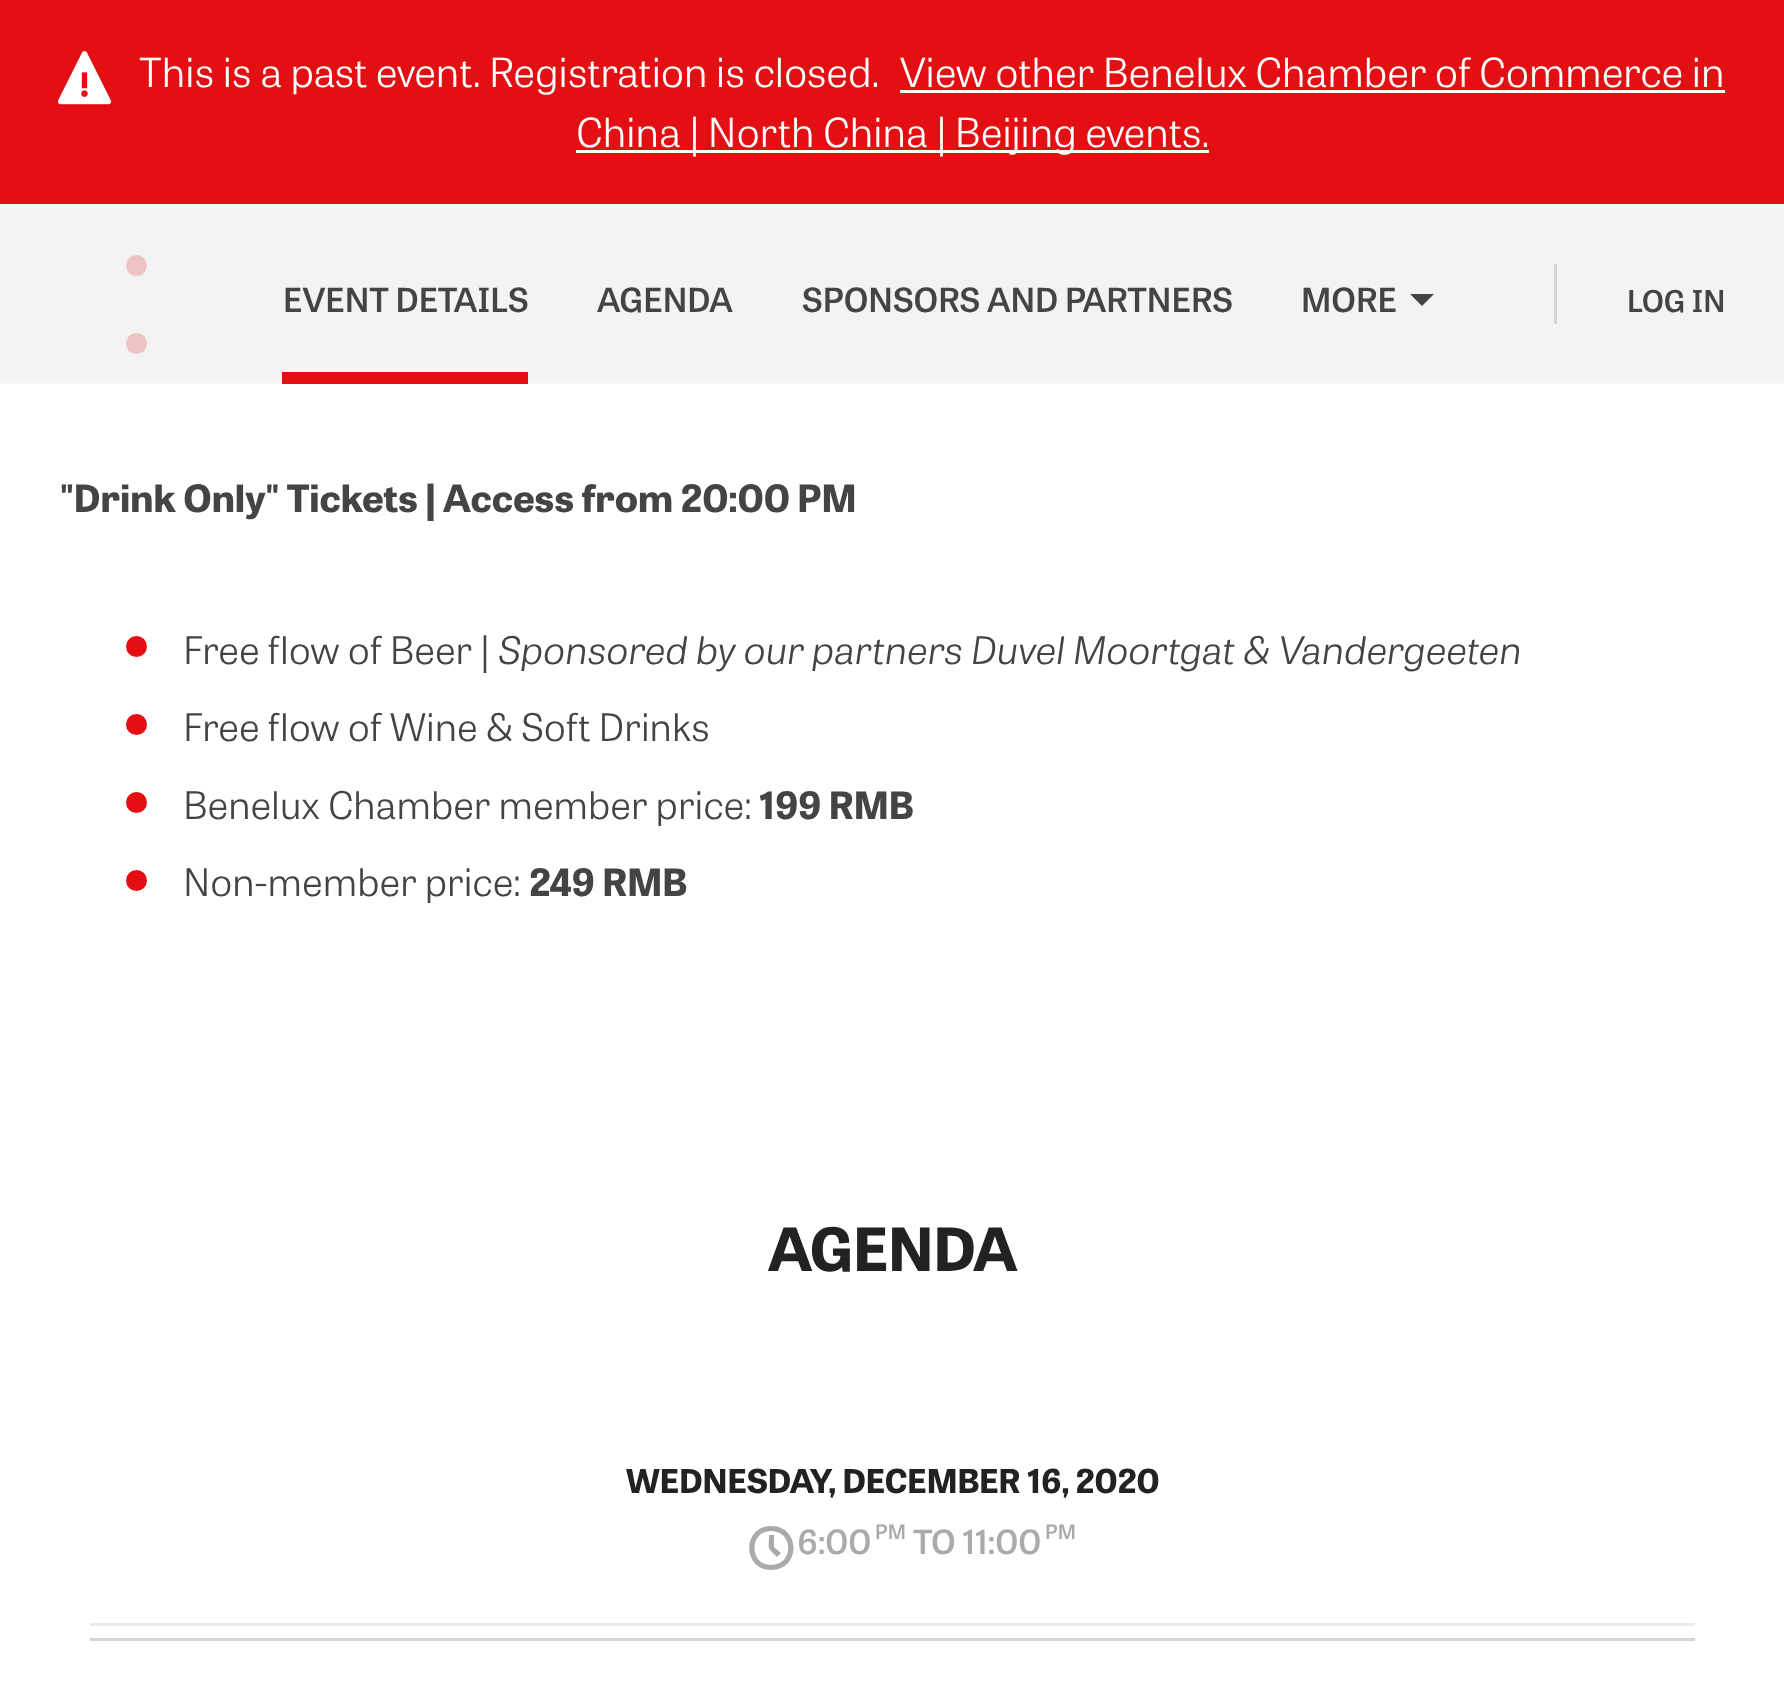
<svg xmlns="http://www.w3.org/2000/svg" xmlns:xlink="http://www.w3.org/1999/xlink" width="1784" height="1705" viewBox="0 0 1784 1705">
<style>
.cls-1{font:300 48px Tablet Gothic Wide;fill:#ffffff}
.cls-2{font:600 40px Tablet Gothic Wide;fill:#444444}
.cls-3{font:600 36px Tablet Gothic Wide;fill:#444444}
.cls-4{font:bold 45.6px Tablet Gothic Wide;fill:#444444}
.cls-5{font:300 45.6px Tablet Gothic Wide;fill:#444444}
.cls-6{font:italic 300 45.6px Tablet Gothic Wide;fill:#444444}
.cls-7{font:bold 72.5px Tablet Gothic Wide;fill:#222222}
.cls-8{font:bold 40px Tablet Gothic Wide;fill:#222222}
.cls-9{font:600 40px Tablet Gothic Wide;fill:#aaaaaa}
.cls-10{font:600 24px Tablet Gothic Wide;fill:#aaaaaa}
</style>
<rect width="100%" height="100%" fill="#ffffff"/>
<rect fill="#e30f13" x="0" y="0" width="1784" height="204"/>
<image xlink:href="image0.png" x="57" y="51" width="55" height="54"/>
<rect fill="#ffffff" x="900" y="90" width="825" height="3"/>
<rect fill="#ffffff" x="576" y="150" width="633" height="3"/>
<circle fill="#e30f13" cx="136.5" cy="265.5" r="10.5"/>
<circle fill="#e30f13" cx="136.5" cy="343.5" r="10.5"/>
<rect fill="#f0f0f0" fill-opacity="0.8" x="0" y="204" width="1784" height="177"/>
<rect fill="#f7f7f7" x="0" y="381" width="1784" height="3"/>
<rect fill="#e30f13" x="282" y="372" width="246" height="12"/>
<path fill="#444444" d="M1410 294H1434L1422 306Z"/>
<rect fill="#d5d5d5" x="1554" y="264" width="3" height="60"/>
<circle fill="#e30f13" cx="136.5" cy="646.5" r="10.5"/>
<circle fill="#e30f13" cx="136.5" cy="724.5" r="10.5"/>
<circle fill="#e30f13" cx="136.5" cy="802.5" r="10.5"/>
<circle fill="#e30f13" cx="136.5" cy="880.5" r="10.5"/>
<rect fill="#eaeaea" x="90" y="1623" width="1605" height="3"/>
<path fill="#aaaaaa" d="M771 1531C749 1531 749 1565 771 1565C794 1565 794 1531 771 1531ZM771 1570C742 1570 742 1526 771 1526C801 1526 801 1570 771 1570ZM777 1557C766 1546 769 1551 769 1535H774V1547L781 1553Z"/>
<rect fill="#d5d5d5" x="90" y="1638" width="1605" height="3"/>
<text class="cls-1" x="139" y="87">This is a past event. Registration is closed.</text>
<text class="cls-1" x="900" y="87">View other Benelux Chamber of Commerce in</text>
<text class="cls-1" x="576" y="147">China | North China | Beijing events.</text>
<text class="cls-2" x="283" y="312">EVENT DETAILS</text>
<text class="cls-2" x="597" y="312">AGENDA</text>
<text class="cls-2" x="802" y="312">SPONSORS AND PARTNERS</text>
<text class="cls-2" x="1301" y="312">MORE</text>
<text class="cls-3" x="1627" y="312">LOG IN</text>
<text class="cls-4" x="60" y="512">"Drink Only" Tickets | Access from 20:00 PM</text>
<text class="cls-5" x="183" y="664">Free flow of Beer |</text>
<text class="cls-6" x="498" y="664">Sponsored by our partners Duvel Moortgat &amp; Vandergeeten</text>
<text class="cls-5"><tspan x="183" y="741">Free flow of Wine &amp; Soft Drinks</tspan><tspan x="183" y="819">Benelux Chamber member price:</tspan></text>
<text class="cls-4" x="759" y="819">199 RMB</text>
<text class="cls-5" x="183" y="896">Non-member price:</text>
<text class="cls-4" x="529" y="896">249 RMB</text>
<text class="cls-7" x="768" y="1271">AGENDA</text>
<text class="cls-8" x="626" y="1493">WEDNESDAY, DECEMBER 16, 2020</text>
<text class="cls-9" x="797" y="1554">6:00</text>
<text class="cls-10" x="875" y="1539">PM</text>
<text class="cls-9" x="913" y="1554">TO 11:00</text>
<text class="cls-10" x="1045" y="1539">PM</text>
</svg>
